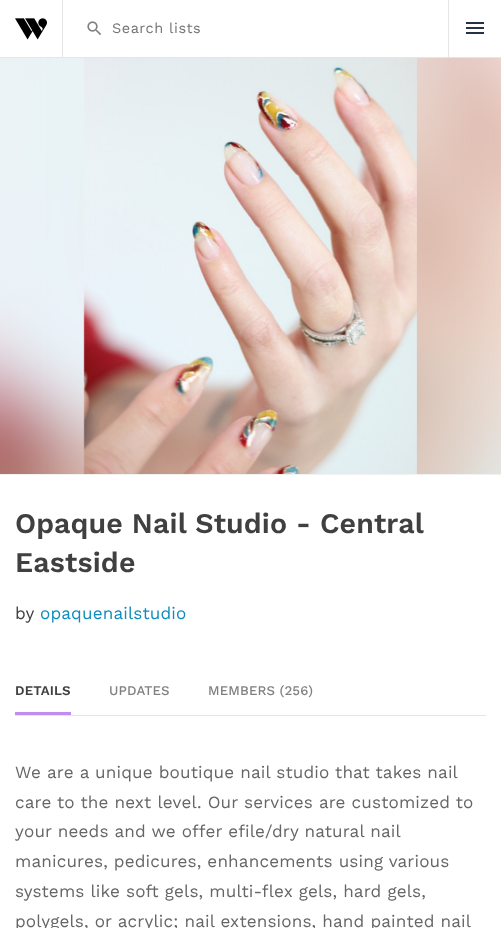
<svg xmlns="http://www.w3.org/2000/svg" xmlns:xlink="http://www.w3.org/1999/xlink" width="501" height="928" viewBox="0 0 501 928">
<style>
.cls-1{font:14.5px Work Sans;letter-spacing:0.5px;fill:#757575}
.cls-2{font:600 28.5px Work Sans;letter-spacing:0.15px;fill:#404040}
.cls-3{font:17.1px Work Sans;letter-spacing:0.15px;fill:#404040}
.cls-4{font:17.1px Work Sans;letter-spacing:0.15px;fill:#0d8cbd}
.cls-5{font:600 13.25px Work Sans;letter-spacing:0.15px;fill:#404040}
.cls-6{font:500 13.25px Work Sans;letter-spacing:0.15px;fill:#808080}
.cls-7{font:17.1px Work Sans;letter-spacing:0.15px;fill:#666666}
</style>
<rect width="100%" height="100%" fill="#ffffff"/>
<rect fill="#e5e5e5" x="0" y="57" width="501" height="1"/>
<image xlink:href="image0.png" x="15" y="18" width="32" height="22"/>
<rect fill="#e5e5e5" x="62" y="0" width="1" height="57"/>
<image xlink:href="image1.png" x="87" y="21" width="14" height="14"/>
<rect fill="#e5e5e5" x="448" y="0" width="1" height="57"/>
<image xlink:href="image2.png" x="466" y="22" width="18" height="12"/>
<image xlink:href="image3.png" x="0" y="58" width="501" height="416"/>
<rect fill="#f1f1f1" x="0" y="474" width="501" height="1"/>
<image xlink:href="image4.png" x="83" y="58" width="334" height="416"/>
<rect fill="#e5e5e5" x="15" y="715" width="471" height="1"/>
<rect fill="#c08eef" x="15" y="712" width="56" height="3"/>
<text class="cls-1" x="112" y="33">Search lists</text>
<text class="cls-2"><tspan x="15" y="533">Opaque Nail Studio - Central</tspan><tspan x="15" y="572">Eastside</tspan></text>
<text class="cls-3" x="15" y="619">by</text>
<text class="cls-4" x="40" y="619">opaquenailstudio</text>
<text class="cls-5" x="15" y="695">DETAILS</text>
<text class="cls-6" x="109" y="695">UPDATES</text>
<text class="cls-6" x="208" y="695">MEMBERS (256)</text>
<text class="cls-7"><tspan x="15" y="778">We are a unique boutique nail studio that takes nail</tspan><tspan x="15" y="808">care to the next level. Our services are customized to</tspan><tspan x="15" y="837">your needs and we offer efile/dry natural nail</tspan><tspan x="15" y="867">manicures, pedicures, enhancements using various</tspan><tspan x="15" y="897">systems like soft gels, multi-flex gels, hard gels,</tspan><tspan x="15" y="927">polygels, or acrylic; nail extensions, hand painted nail</tspan></text>
</svg>
